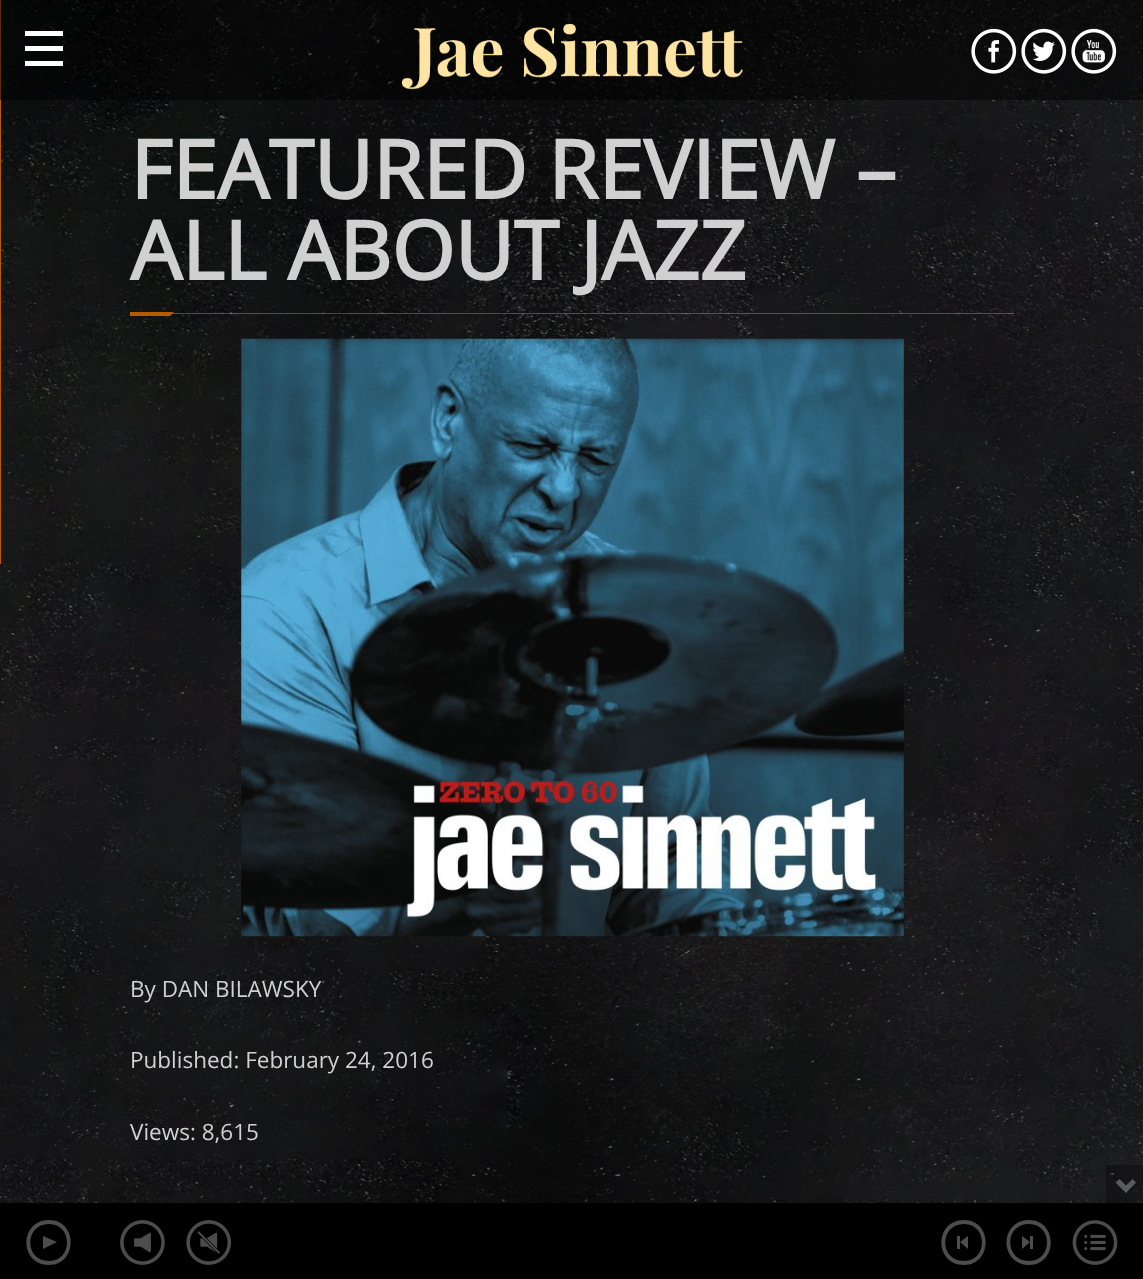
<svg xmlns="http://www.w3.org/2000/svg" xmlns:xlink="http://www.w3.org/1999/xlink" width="1143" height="1279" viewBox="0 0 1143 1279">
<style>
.cls-1{font:bold 81.25px Open Sans;fill:#d0d0d1}
.cls-2{font:22.5px Open Sans;fill:#d0d0d1}
</style>
<rect width="100%" height="100%" fill="#ffffff"/>
<image xlink:href="image0.png" x="0" y="0" width="1143" height="1203"/>
<rect fill="#b75b00" x="0" y="0" width="1" height="564"/>
<rect fill="#000000" fill-opacity="0.5" x="0" y="0" width="1143" height="100"/>
<rect fill="#ffffff" x="25" y="31" width="38" height="5"/>
<rect fill="#ffffff" x="25" y="46" width="38" height="5"/>
<rect fill="#ffffff" x="25" y="61" width="38" height="5"/>
<image xlink:href="image1.png" x="402" y="24" width="341" height="66"/>
<image xlink:href="image2.png" x="971" y="28" width="46" height="46"/>
<image xlink:href="image3.png" x="1021" y="28" width="46" height="46"/>
<image xlink:href="image4.png" x="1071" y="28" width="46" height="46"/>
<rect fill="#ffffff" fill-opacity="0.25" x="172" y="313" width="842" height="1"/>
<path fill="#b75b00" d="M130 312H174L170 316H130Z"/>
<image xlink:href="image5.png" x="241" y="338" width="663" height="599"/>
<rect fill="#000000" x="0" y="1203" width="1143" height="76"/>
<rect fill="#000000" fill-opacity="0.3" x="1106" y="1165" width="37" height="38"/>
<path fill="#ffffff" fill-opacity="0.3" d="M1115.5 1182.5L1119.5 1179L1126 1185.5L1132.5 1179L1136 1182.5L1126 1193Z"/>
<path fill="#4d4d4d" d="M49 1220C78 1220 78 1265 49 1265C19 1265 19 1220 49 1220ZM49 1261C73 1261 73 1224 49 1224C24 1224 24 1261 49 1261ZM43 1249V1236L57 1242Z"/>
<image xlink:href="image6.png" x="120" y="1220" width="45" height="45"/>
<image xlink:href="image7.png" x="186" y="1220" width="45" height="45"/>
<path fill="#4d4d4d" d="M964 1220C993 1220 993 1265 964 1265C934 1265 934 1220 964 1220ZM964 1261C988 1261 988 1224 964 1224C939 1224 939 1261 964 1261ZM968 1249L960 1242L968 1236ZM957 1236H960V1249H957Z"/>
<path fill="#4d4d4d" d="M1029 1220C1058 1220 1058 1265 1029 1265C999 1265 999 1220 1029 1220ZM1029 1261C1053 1261 1053 1224 1029 1224C1004 1224 1004 1261 1029 1261ZM1022 1249V1236L1030 1242ZM1030 1241V1236H1033V1249H1030Z"/>
<image xlink:href="image8.png" x="1072" y="1220" width="46" height="45"/>
<text class="cls-1"><tspan x="130" y="199">FEATURED REVIEW –</tspan><tspan x="130" y="280">ALL ABOUT JAZZ</tspan></text>
<text class="cls-2" x="130" y="997">By DAN BILAWSKY</text>
<text class="cls-2" x="130" y="1068">Published: February 24, 2016</text>
<text class="cls-2" x="130" y="1140">Views: 8,615</text>
</svg>
